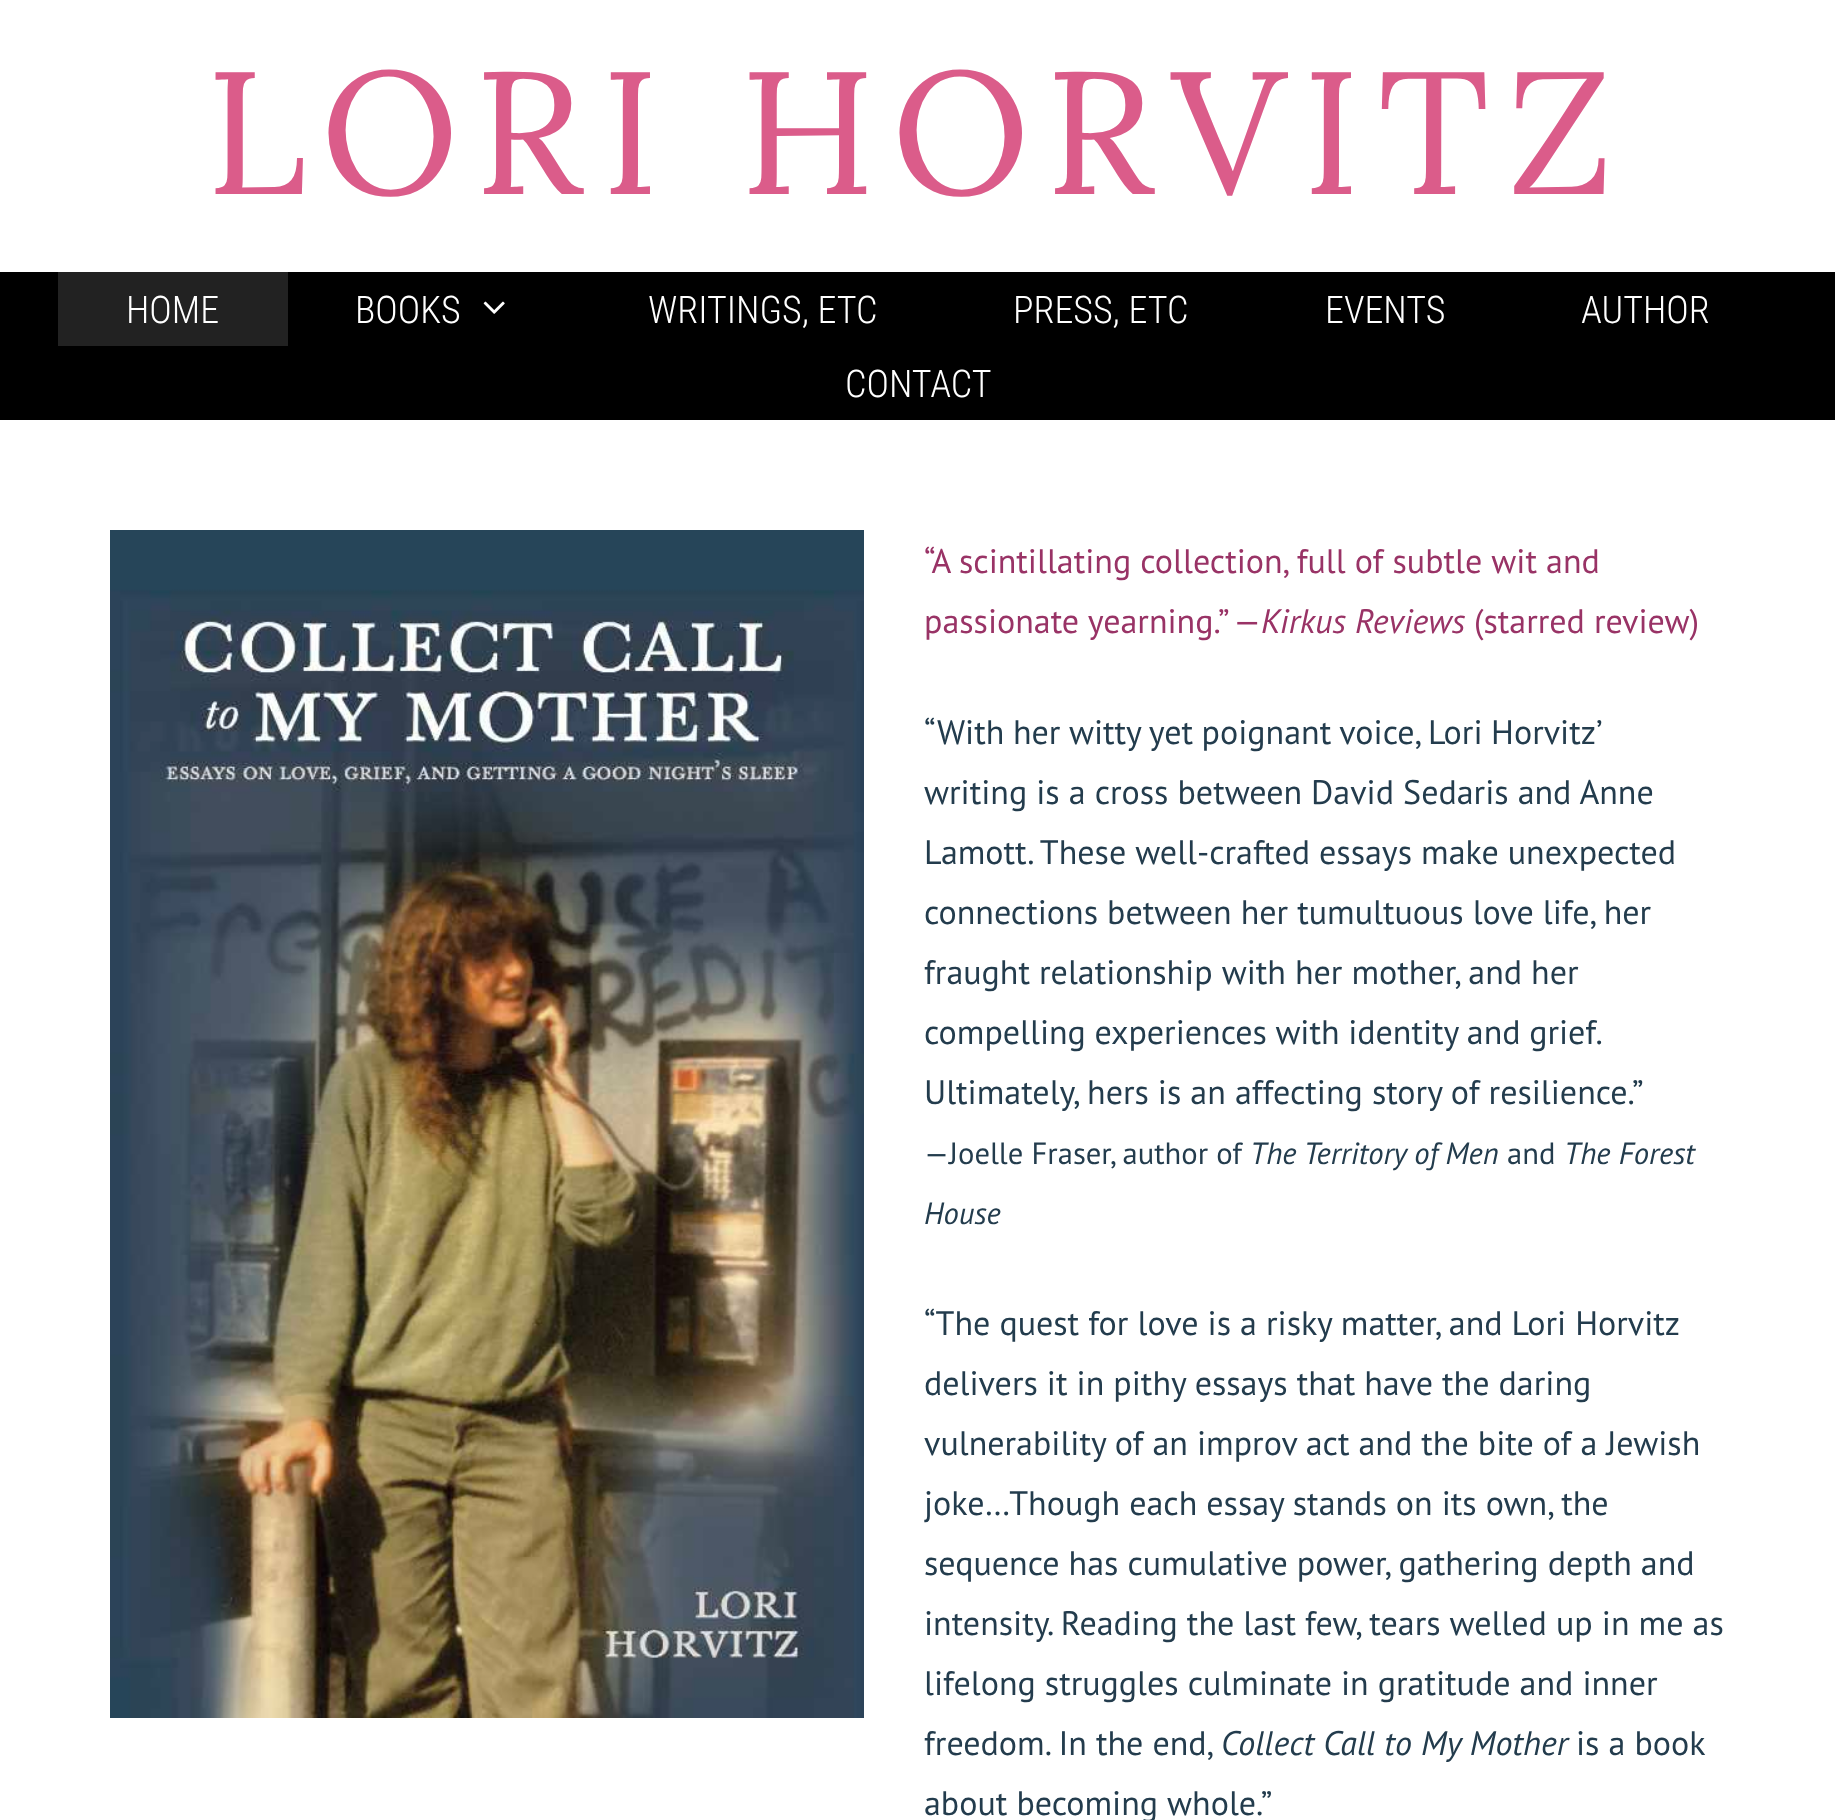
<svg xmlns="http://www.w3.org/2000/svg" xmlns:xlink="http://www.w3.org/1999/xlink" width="1835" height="1820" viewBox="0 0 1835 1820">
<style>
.cls-1{font:174px Lora;letter-spacing:17.4px;fill:#db5c8a}
.cls-2{font:300 38px Roboto Condensed;fill:#ffffff}
.cls-3{font:34px PT Sans;fill:#993366}
.cls-4{font:italic 34px PT Sans;fill:#993366}
.cls-5{font:34px PT Sans;fill:#233c4d}
.cls-6{font:30.6px PT Sans;fill:#233c4d}
.cls-7{font:italic 30.6px PT Sans;fill:#233c4d}
.cls-8{font:italic 34px PT Sans;fill:#233c4d}
</style>
<rect width="100%" height="100%" fill="#ffffff"/>
<rect fill="#000000" x="0" y="272" width="1835" height="148"/>
<rect fill="#222222" x="58" y="272" width="230" height="74"/>
<image xlink:href="image0.png" x="483" y="301" width="22" height="13"/>
<image xlink:href="image1.png" x="110" y="530" width="754" height="1188"/>
<text class="cls-1" x="206" y="194">LORI HORVITZ</text>
<text class="cls-2" x="126" y="323">HOME</text>
<text class="cls-2" x="355" y="323">BOOKS</text>
<text class="cls-2" x="648" y="323">WRITINGS, ETC</text>
<text class="cls-2" x="1013" y="323">PRESS, ETC</text>
<text class="cls-2" x="1325" y="323">EVENTS</text>
<text class="cls-2" x="1581" y="323">AUTHOR</text>
<text class="cls-2" x="845" y="397">CONTACT</text>
<text class="cls-3"><tspan x="924" y="573">“A scintillating collection, full of subtle wit and</tspan><tspan x="924" y="633">passionate yearning.” —</tspan></text>
<text class="cls-4" x="1261" y="633">Kirkus Reviews</text>
<text class="cls-3" x="1474" y="633">(starred review)</text>
<text class="cls-5"><tspan x="924" y="744" word-spacing="-0.5">“With her witty yet poignant voice, Lori Horvitz’</tspan><tspan x="924" y="804">writing is a cross between David Sedaris and Anne</tspan><tspan x="924" y="864">Lamott. These well-crafted essays make unexpected</tspan><tspan x="924" y="924">connections between her tumultuous love life, her</tspan><tspan x="924" y="984">fraught relationship with her mother, and her</tspan><tspan x="924" y="1044" word-spacing="-0.5">compelling experiences with identity and grief.</tspan><tspan x="924" y="1104">Ultimately, hers is an affecting story of resilience.”</tspan></text>
<text class="cls-6" x="924" y="1164">—Joelle Fraser, author of</text>
<text class="cls-7" x="1250" y="1164">The Territory of Men</text>
<text class="cls-6" x="1507" y="1164">and</text>
<text class="cls-7" x="1564" y="1164">The Forest</text>
<text class="cls-7" x="924" y="1224">House</text>
<text class="cls-5"><tspan x="924" y="1335">“The quest for love is a risky matter, and Lori Horvitz</tspan><tspan x="924" y="1395">delivers it in pithy essays that have the daring</tspan><tspan x="924" y="1455">vulnerability of an improv act and the bite of a Jewish</tspan><tspan x="924" y="1515">joke…Though each essay stands on its own, the</tspan><tspan x="924" y="1575">sequence has cumulative power, gathering depth and</tspan><tspan x="924" y="1635">intensity. Reading the last few, tears welled up in me as</tspan><tspan x="924" y="1695">lifelong struggles culminate in gratitude and inner</tspan><tspan x="924" y="1755">freedom. In the end,</tspan></text>
<text class="cls-8" x="1221" y="1755">Collect Call to My Mother</text>
<text class="cls-5" x="1576" y="1755">is a book</text>
<text class="cls-5" x="924" y="1815">about becoming whole.”</text>
</svg>
